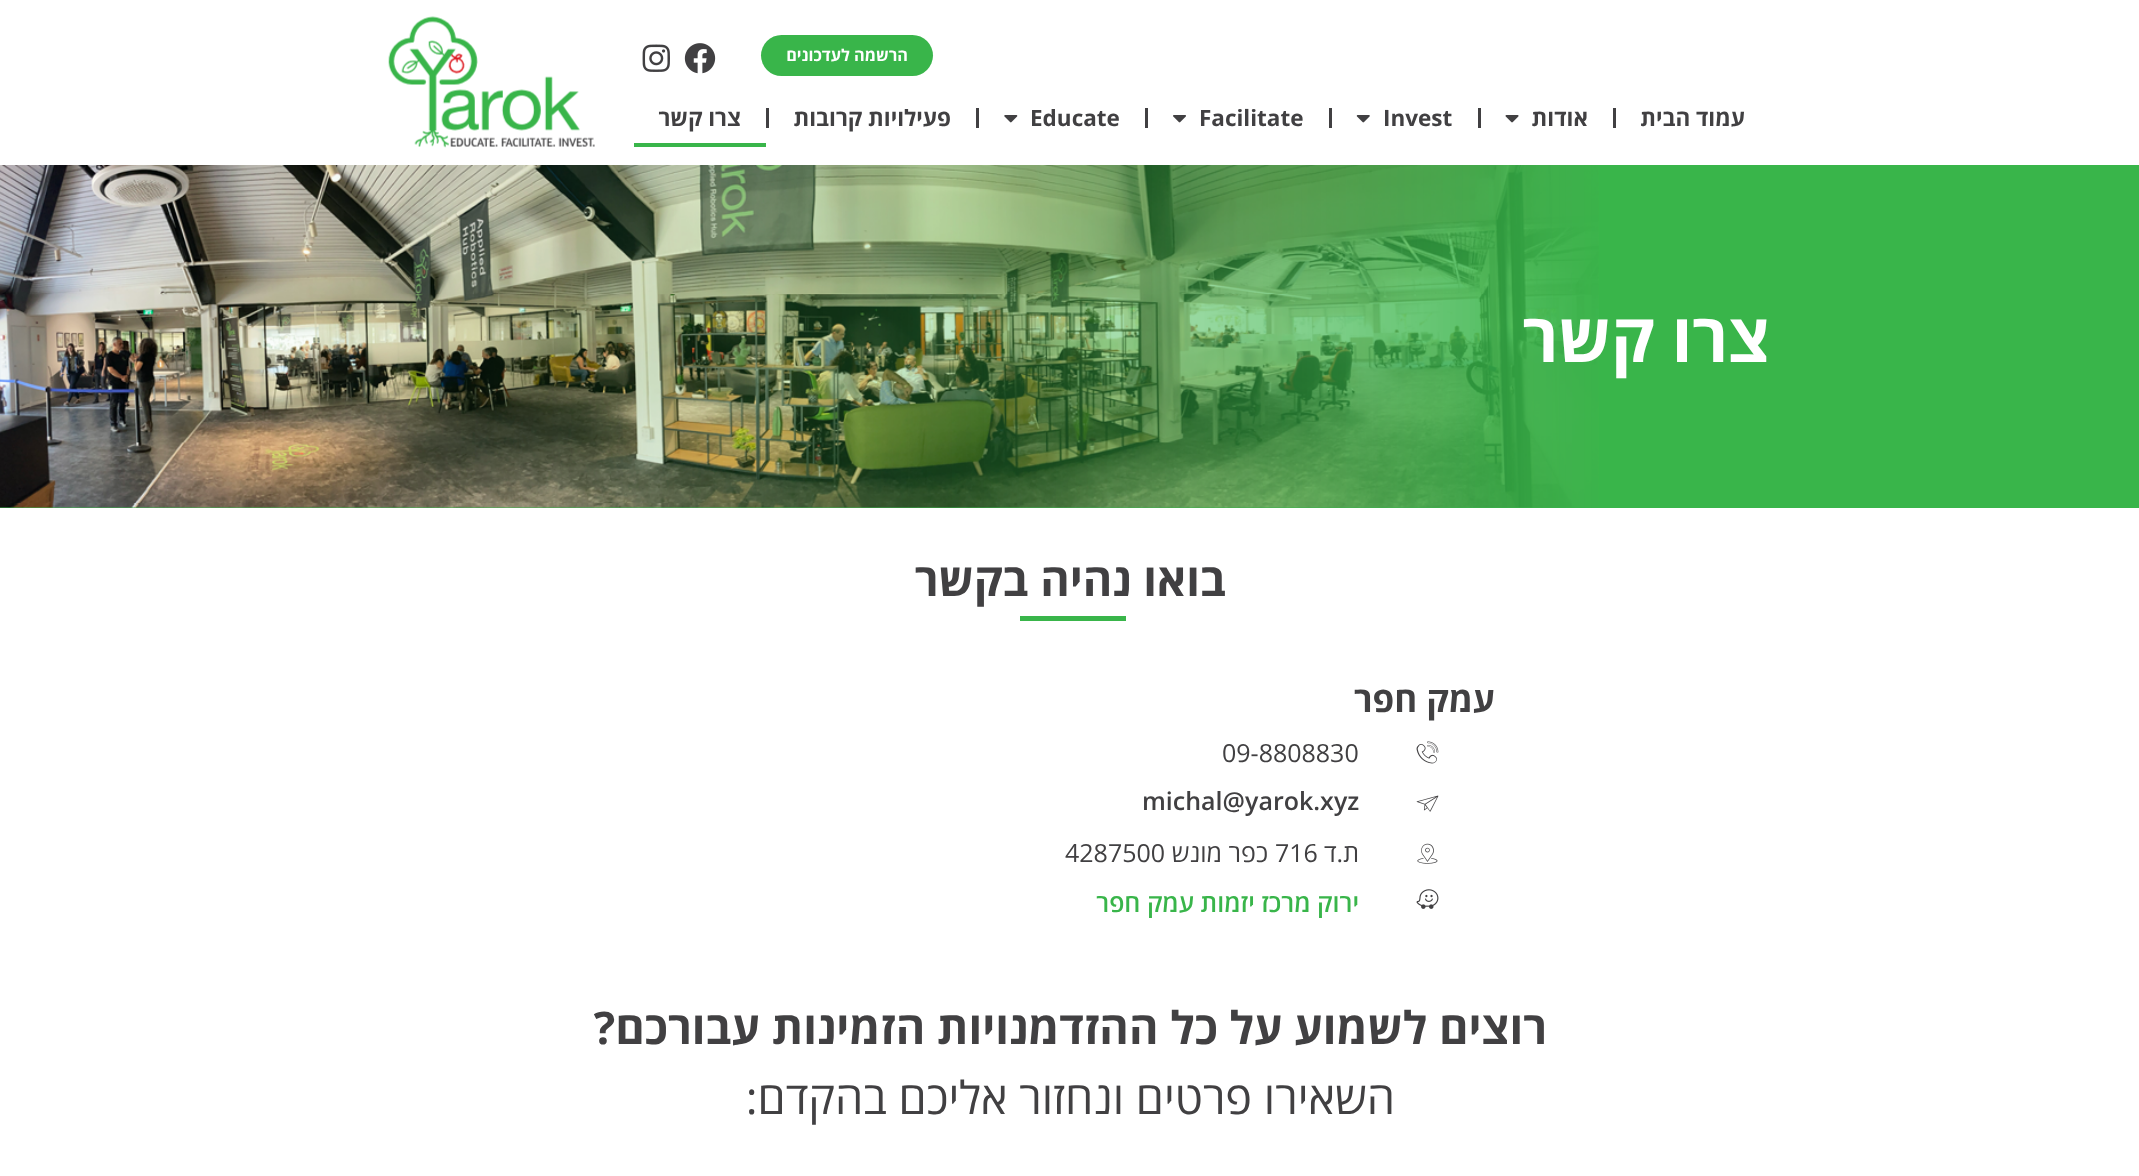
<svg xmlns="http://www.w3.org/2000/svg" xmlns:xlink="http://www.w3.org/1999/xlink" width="2139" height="1176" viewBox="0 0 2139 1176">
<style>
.cls-1{font:bold 16.25px Open Sans;direction:rtl;fill:#ffffff}
.cls-2{font:bold 22.5px Open Sans;direction:rtl;fill:#414042}
.cls-3{font:bold 22.5px Open Sans;fill:#414042}
.cls-4{font:bold 67.5px Open Sans;direction:rtl;fill:#ffffff}
.cls-5{font:bold 45px Open Sans;direction:rtl;fill:#414042}
.cls-6{font:bold 35px Open Sans;direction:rtl;fill:#414042}
.cls-7{font:25px Open Sans;fill:#414042}
.cls-8{font:600 25px Open Sans;fill:#414042}
.cls-9{font:25px Open Sans;direction:rtl;fill:#414042}
.cls-10{font:600 25px Open Sans;direction:rtl;fill:#39b54a}
.cls-11{font:45px Open Sans;direction:rtl;fill:#414042}
</style>
<rect width="100%" height="100%" fill="#ffffff"/>
<rect fill="#39b54a" x="761" y="35" width="172" height="41" rx="20.5"/>
<image xlink:href="image0.png" x="684" y="43" width="32" height="31"/>
<image xlink:href="image1.png" x="642" y="44" width="28" height="28"/>
<rect fill="#414042" x="1613" y="108" width="3" height="20"/>
<image xlink:href="image2.png" x="1505" y="115" width="14" height="8"/>
<rect fill="#414042" x="1478" y="108" width="3" height="20"/>
<image xlink:href="image3.png" x="1356" y="115" width="14" height="8"/>
<rect fill="#414042" x="1329" y="108" width="3" height="20"/>
<image xlink:href="image4.png" x="1173" y="115" width="13" height="8"/>
<rect fill="#414042" x="1145" y="108" width="3" height="20"/>
<image xlink:href="image5.png" x="1004" y="115" width="14" height="8"/>
<rect fill="#414042" x="976" y="108" width="3" height="20"/>
<rect fill="#414042" x="766" y="108" width="3" height="20"/>
<rect fill="#39b54a" x="634" y="143" width="132" height="4"/>
<image xlink:href="image6.png" x="388" y="16" width="207" height="132"/>
<rect fill="#39b54a" x="0" y="165" width="2139" height="343"/>
<image xlink:href="image7.png" x="0" y="165" width="1599" height="343"/>
<rect fill="#39b54a" x="1020" y="616" width="106" height="5"/>
<image xlink:href="image8.png" x="1416" y="741" width="23" height="23"/>
<image xlink:href="image9.png" x="1416" y="795" width="23" height="17"/>
<image xlink:href="image10.png" x="1417" y="843" width="21" height="21"/>
<image xlink:href="image11.png" x="1416" y="889" width="23" height="20"/>
<text class="cls-1" x="908" y="61">הרשמה לעדכונים</text>
<text class="cls-2" x="1745" y="126">עמוד הבית</text>
<text class="cls-2" x="1588" y="126">אודות</text>
<text class="cls-3" x="1383" y="126">Invest</text>
<text class="cls-3" x="1199" y="126">Facilitate</text>
<text class="cls-3" x="1030" y="126">Educate</text>
<text class="cls-2" x="951" y="126">פעילויות קרובות</text>
<text class="cls-2" x="741" y="126">צרו קשר</text>
<text class="cls-4" x="1770" y="362">צרו קשר</text>
<text class="cls-5" x="1226" y="596">בואו נהיה בקשר</text>
<text class="cls-6" x="1495" y="712">עמק חפר</text>
<text class="cls-7" x="1222" y="762">09-8808830</text>
<text class="cls-8" x="1142" y="810">michal@yarok.xyz</text>
<text class="cls-9" x="1359" y="862">ת.ד</text>
<text class="cls-7" x="1275" y="862">716</text>
<text class="cls-9" x="1268" y="862">כפר מונש</text>
<text class="cls-7" x="1065" y="862">4287500</text>
<text class="cls-10" x="1359" y="912">ירוק מרכז יזמות עמק חפר</text>
<text class="cls-5" x="1547" y="1044">רוצים לשמוע על כל ההזדמנויות הזמינות עבורכם?</text>
<text class="cls-11" x="1395" y="1114">השאירו פרטים ונחזור אליכם בהקדם:</text>
</svg>
